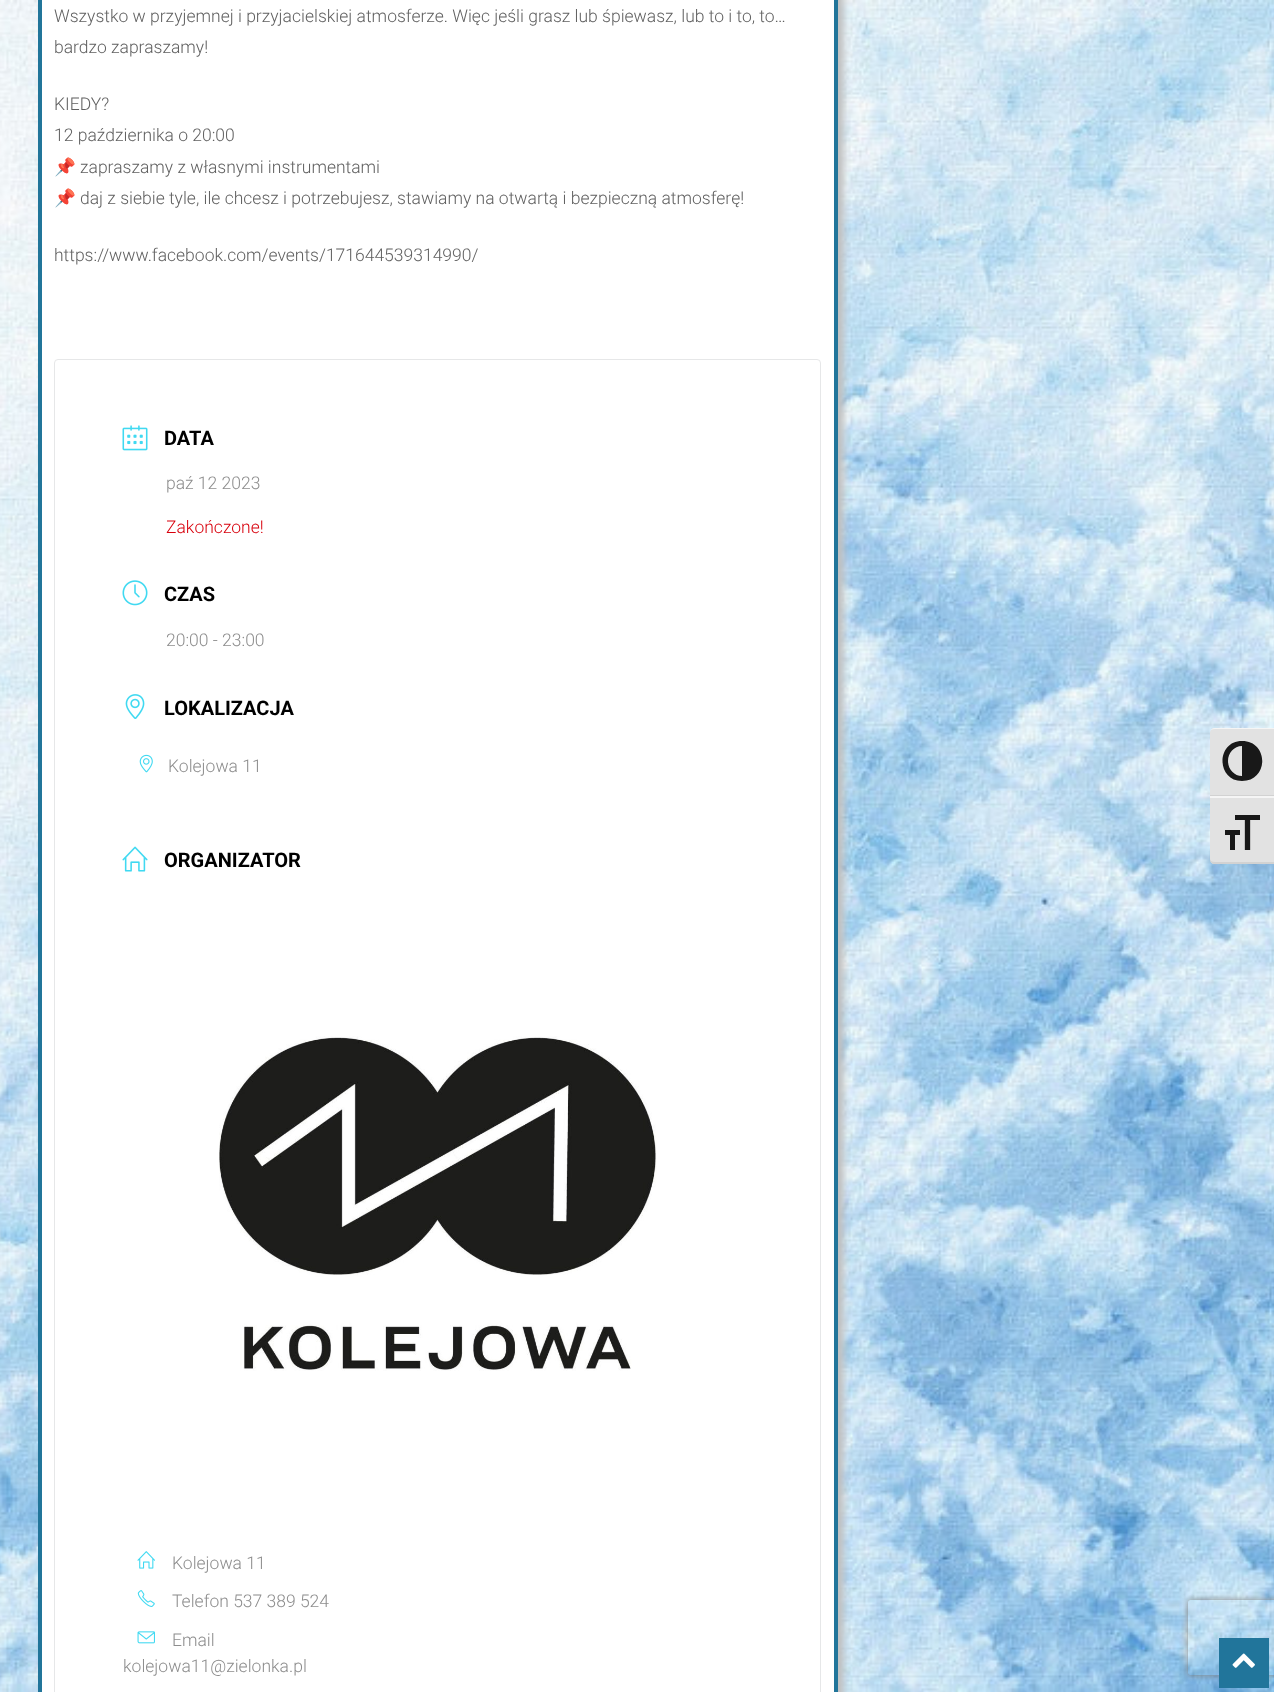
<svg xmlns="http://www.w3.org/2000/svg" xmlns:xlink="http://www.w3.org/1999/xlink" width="1274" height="1692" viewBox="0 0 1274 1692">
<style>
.cls-1{font:300 17.5px Roboto;fill:#616161}
.cls-2{font:17.5px Noto Color Emoji;fill:#616161}
.cls-3{font:bold 20px Roboto;fill:#000000}
.cls-4{font:300 17.5px Roboto;fill:#8d8d8d}
.cls-5{font:300 17.5px Roboto;fill:#d8000c}
</style>
<defs>
<clipPath id="clip1"><path d="M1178 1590H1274V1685H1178ZM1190.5 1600H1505.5C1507 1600 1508 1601 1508 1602.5V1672.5C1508 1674 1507 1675 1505.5 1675H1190.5C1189 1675 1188 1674 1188 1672.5V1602.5C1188 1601 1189 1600 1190.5 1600Z" clip-rule="evenodd"/></clipPath>
</defs>
<rect width="100%" height="100%" fill="#ffffff"/>
<image xlink:href="image0.png" x="0" y="0" width="1274" height="1692"/>
<rect fill="#c1c1c1" filter="blur(3px)" x="44" y="-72" width="800" height="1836" rx="63"/>
<rect fill="#ffffff" stroke="#21759a" stroke-width="4" x="40" y="-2" width="796" height="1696"/>
<rect fill="none" stroke="#e6e7e8" x="54.5" y="359.5" width="766" height="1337" rx="3.5"/>
<image xlink:href="image1.png" x="122" y="425" width="26" height="26"/>
<image xlink:href="image2.png" x="122" y="580" width="26" height="26"/>
<image xlink:href="image3.png" x="125" y="694" width="20" height="25"/>
<image xlink:href="image4.png" x="139" y="754" width="14" height="19"/>
<image xlink:href="image5.png" x="122" y="846" width="26" height="26"/>
<image xlink:href="image6.png" x="219" y="1036" width="438" height="335"/>
<image xlink:href="image7.png" x="137" y="1551" width="18" height="18"/>
<image xlink:href="image8.png" x="137" y="1590" width="18" height="17"/>
<image xlink:href="image9.png" x="137" y="1631" width="18" height="13"/>
<path fill="#e2e2e2" d="M1215 728H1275V796H1210V733C1210 730 1212 728 1215 728Z"/>
<path fill="#f5f5f5" d="M1215 728C1212 728 1210 730 1210 732C1210 730 1212 729 1215 729H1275V728Z"/>
<rect fill="#d2d2d2" x="1210" y="795" width="64" height="1"/>
<path fill="#181818" d="M1242 741C1216 741 1216 781 1242 781C1269 781 1269 741 1242 741ZM1228 761C1228 753 1234 746 1242 746V776C1234 776 1228 769 1228 761Z"/>
<path fill="#e2e2e2" d="M1210 796H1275V864H1215C1212 864 1210 862 1210 859Z"/>
<rect fill="#f5f5f5" x="1210" y="796" width="64" height="2"/>
<path fill="#d2d2d2" d="M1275 864H1213C1211 863 1210 861 1210 859C1210 861 1212 862 1215 862H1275Z"/>
<image xlink:href="image10.png" x="1225" y="815" width="35" height="35"/>
<g clip-path="url(#clip1)">
<rect fill="#808080" filter="blur(3px)" x="1188" y="1600" width="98" height="75" rx="2.5"/>
</g>
<rect fill="#21759b" x="1219" y="1638" width="50" height="50"/>
<image xlink:href="image11.png" x="1232" y="1653" width="23" height="15"/>
<text class="cls-1"><tspan x="54" y="22">Wszystko w przyjemnej i przyjacielskiej atmosferze. Więc jeśli grasz lub śpiewasz, lub to i to, to…</tspan><tspan x="54" y="53">bardzo zapraszamy!</tspan></text>
<text class="cls-1"><tspan x="54" y="110">KIEDY?</tspan><tspan x="54" y="141">12 października o 20:00</tspan></text>
<text class="cls-2" x="54" y="173">📌</text>
<text class="cls-1" x="80" y="173">zapraszamy z własnymi instrumentami</text>
<text class="cls-2" x="54" y="204">📌</text>
<text class="cls-1" x="80" y="204">daj z siebie tyle, ile chcesz i potrzebujesz, stawiamy na otwartą i bezpieczną atmosferę!</text>
<text class="cls-1" x="54" y="261">https://www.facebook.com/events/171644539314990/</text>
<text class="cls-3" x="164" y="445">DATA</text>
<text class="cls-4" x="166" y="489">paź 12 2023</text>
<text class="cls-5" x="166" y="533">Zakończone!</text>
<text class="cls-3" x="164" y="601">CZAS</text>
<text class="cls-4" x="166" y="646">20:00 - 23:00</text>
<text class="cls-3" x="164" y="715">LOKALIZACJA</text>
<text class="cls-4" x="168" y="772">Kolejowa 11</text>
<text class="cls-3" x="164" y="867">ORGANIZATOR</text>
<text class="cls-4" x="172" y="1569">Kolejowa 11</text>
<text class="cls-4" x="172" y="1607">Telefon 537 389 524</text>
<text class="cls-4" x="172" y="1646">Email</text>
<text class="cls-4" x="123" y="1672">kolejowa11@zielonka.pl</text>
</svg>
